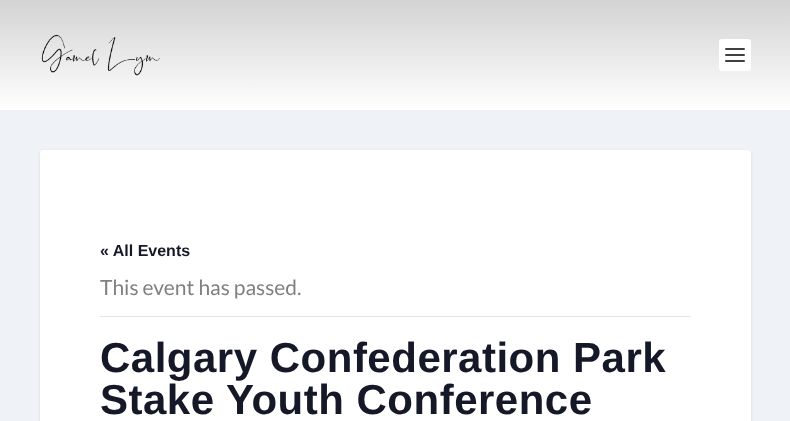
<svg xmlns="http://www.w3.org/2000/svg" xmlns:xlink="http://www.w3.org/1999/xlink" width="790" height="421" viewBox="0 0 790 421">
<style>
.cls-1{font:bold 16px Liberation Sans;fill:#141827}
.cls-2{font:21px Lato;fill:#808080}
.cls-3{font:bold 42px Liberation Sans;letter-spacing:0.5px;fill:#141827}
</style>
<defs>
<linearGradient id="g1" gradientUnits="userSpaceOnUse" x1="395" y1="0" x2="395" y2="110"><stop offset="0" stop-color="#d3d3d3"/><stop offset="1" stop-color="#ffffff"/></linearGradient>
</defs>
<rect width="100%" height="100%" fill="#eff2f7"/>
<rect fill="url(#g1)" x="0" y="0" width="790" height="110"/>
<image xlink:href="image0.png" x="41" y="34" width="119" height="42"/>
<rect fill="#ffffff" x="719" y="39" width="32" height="32" rx="3"/>
<rect fill="#404040" x="725" y="48" width="20" height="2" rx="1"/>
<rect fill="#404040" x="725" y="54" width="20" height="2" rx="1"/>
<rect fill="#404040" x="725" y="60" width="20" height="2" rx="1"/>
<rect fill="#000000" fill-opacity="0.1" filter="blur(1.5px)" x="40" y="151" width="711" height="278" rx="3"/>
<rect fill="#ffffff" x="40" y="150" width="711" height="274" rx="3"/>
<rect fill="#e4e4e4" x="100" y="316" width="591" height="1"/>
<text class="cls-1" x="100" y="256">« All Events</text>
<text class="cls-2" x="100" y="295">This event has passed.</text>
<text class="cls-3"><tspan x="100" y="372">Calgary Confederation Park</tspan><tspan x="100" y="414">Stake Youth Conference</tspan></text>
</svg>
